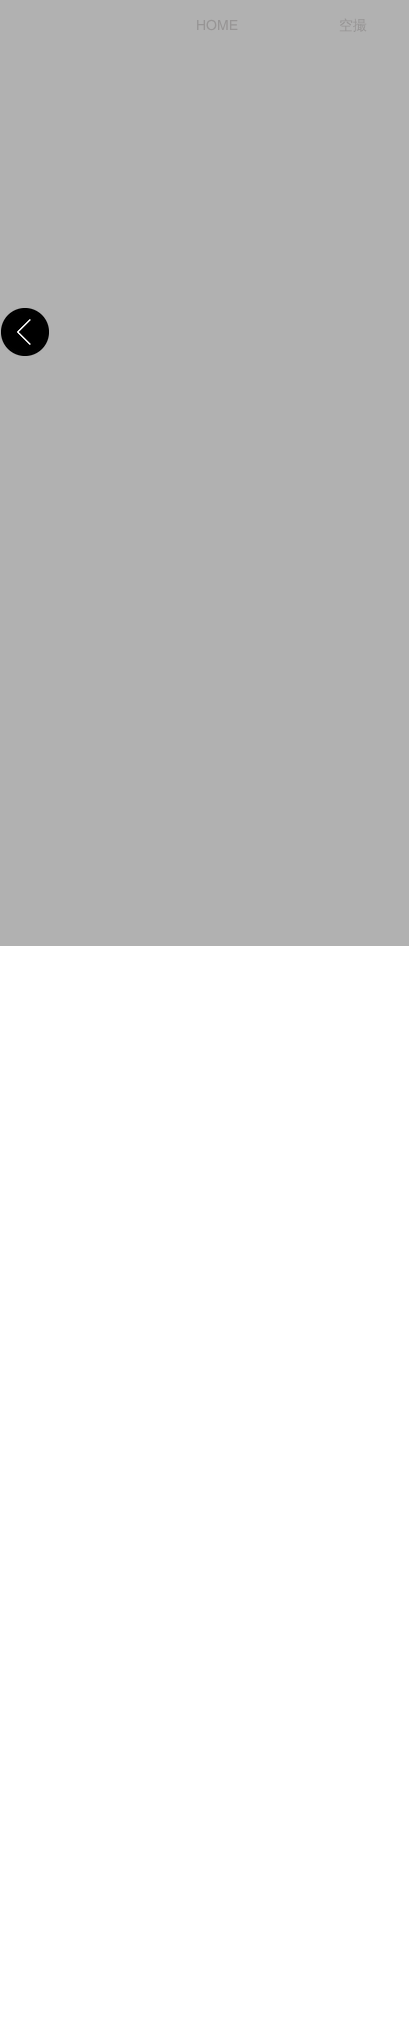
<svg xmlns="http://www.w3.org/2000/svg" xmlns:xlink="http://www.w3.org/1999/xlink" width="409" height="2029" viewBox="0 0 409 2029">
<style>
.cls-1{font:14px helvetica;fill:#979595}
.cls-2{font:500 14px WenQuanYi Zen Hei;fill:#979595}
</style>
<rect width="100%" height="100%" fill="#ffffff"/>
<rect fill="#b1b1b1" x="0" y="0" width="409" height="946"/>
<image xlink:href="image0.png" x="1" y="308" width="48" height="48"/>
<text class="cls-1" x="196" y="30">HOME</text>
<text class="cls-2" x="339" y="30">空撮</text>
</svg>
